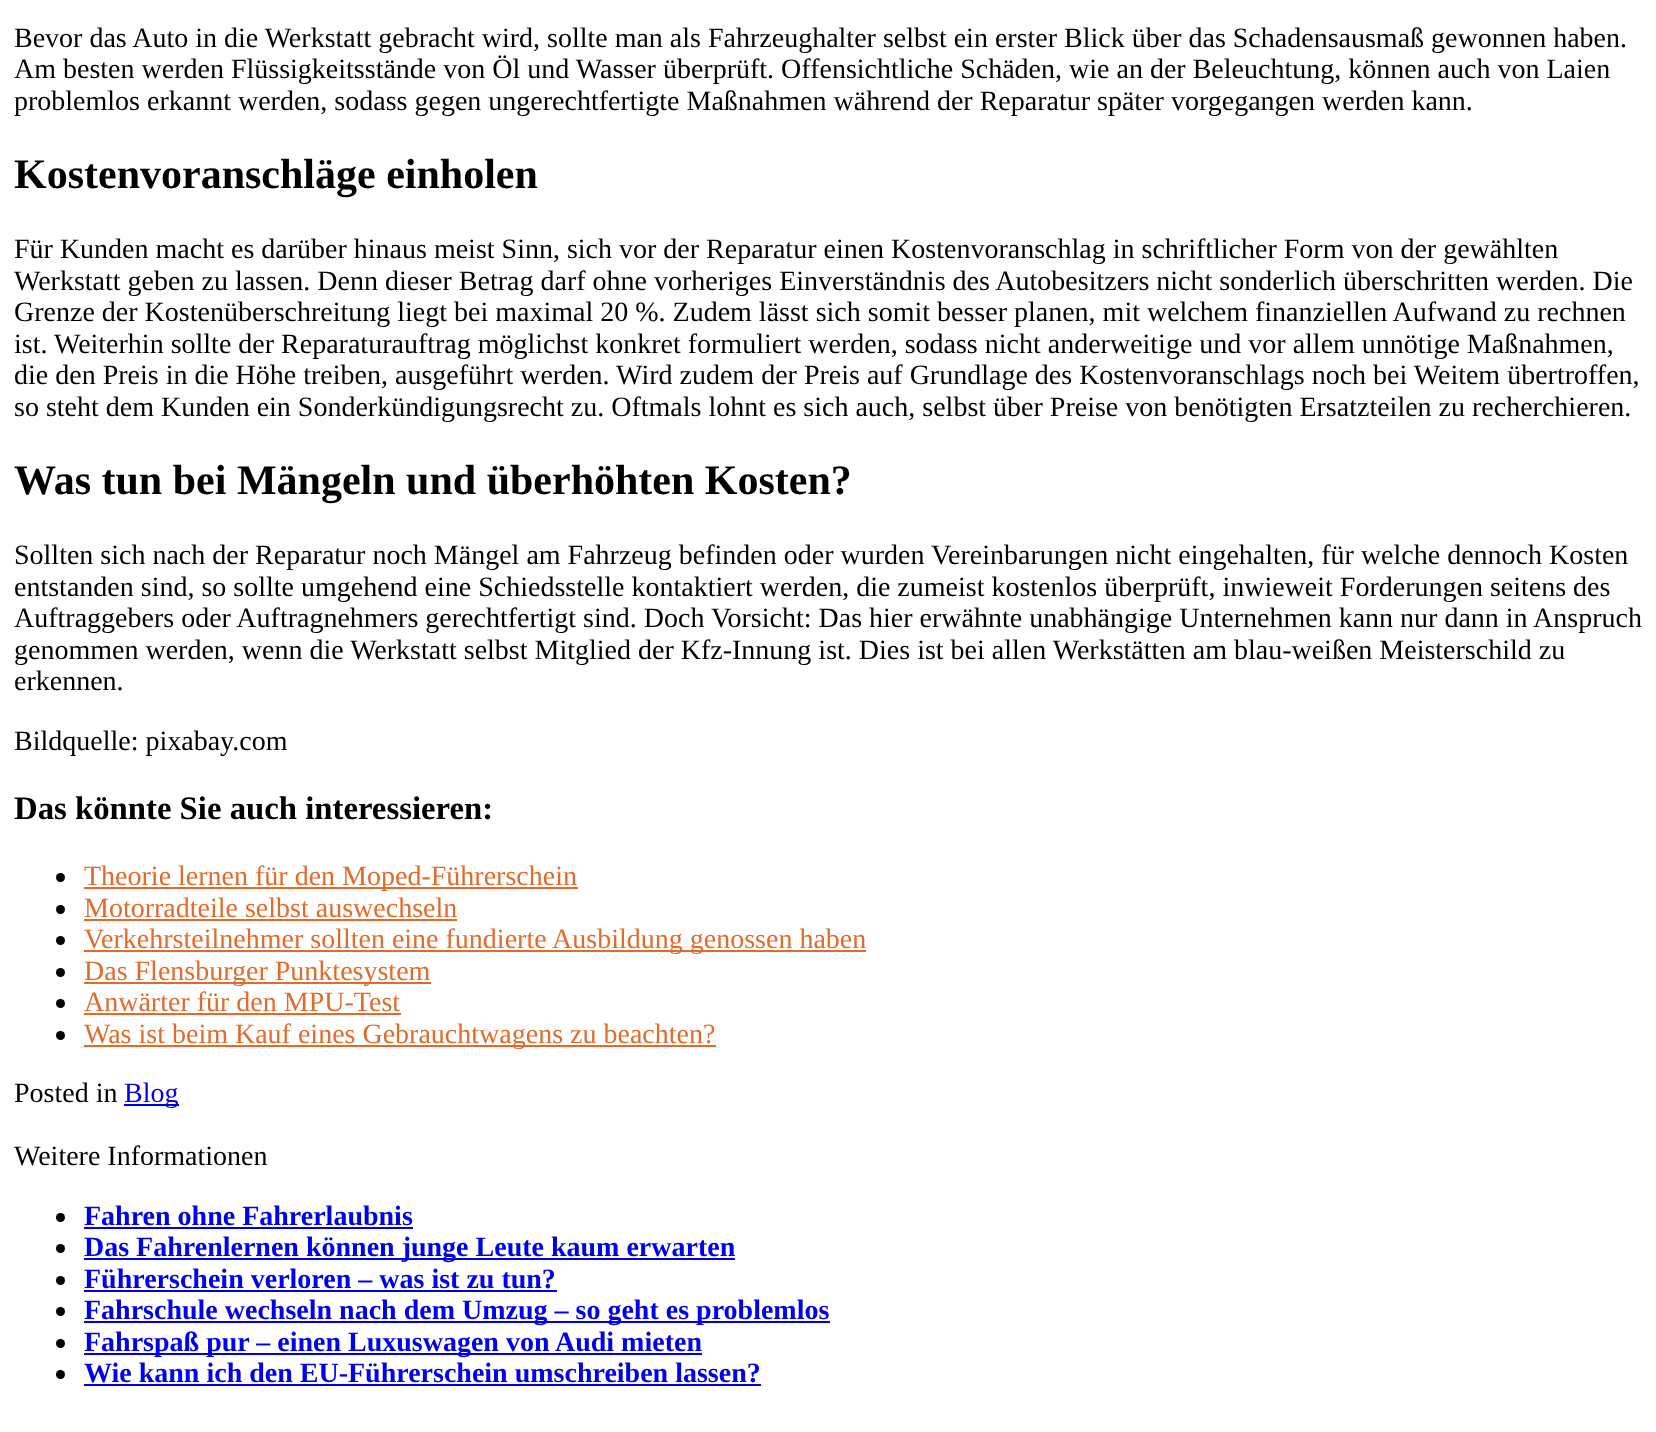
<svg xmlns="http://www.w3.org/2000/svg" xmlns:xlink="http://www.w3.org/1999/xlink" width="1656" height="1432" viewBox="0 0 1656 1432">
<style>
.cls-1{font:28px Liberation Serif;fill:#000000}
.cls-2{font:bold 42px Liberation Serif;fill:#000000}
.cls-3{font:bold 32.75px Liberation Serif;fill:#000000}
.cls-4{font:28px Liberation Serif;fill:#e36b2a}
.cls-5{font:28px Liberation Serif;fill:#0000ee}
.cls-6{font:bold 28px Liberation Serif;fill:#0000ee}
</style>
<rect width="100%" height="100%" fill="#ffffff"/>
<circle fill="#000000" cx="60.5" cy="877.5" r="4.5"/>
<rect fill="#e36b2a" x="84" y="887" width="494" height="2"/>
<circle fill="#000000" cx="60.5" cy="909.5" r="4.5"/>
<rect fill="#e36b2a" x="84" y="919" width="373" height="2"/>
<circle fill="#000000" cx="60.5" cy="940.5" r="4.5"/>
<rect fill="#e36b2a" x="84" y="950" width="782" height="2"/>
<circle fill="#000000" cx="60.5" cy="972.5" r="4.5"/>
<rect fill="#e36b2a" x="84" y="982" width="347" height="2"/>
<circle fill="#000000" cx="60.5" cy="1003.5" r="4.5"/>
<rect fill="#e36b2a" x="84" y="1013" width="317" height="2"/>
<circle fill="#000000" cx="60.5" cy="1035.5" r="4.5"/>
<rect fill="#e36b2a" x="84" y="1045" width="632" height="2"/>
<rect fill="#0000ee" x="124" y="1104" width="55" height="2"/>
<circle fill="#000000" cx="60.5" cy="1217.5" r="4.5"/>
<rect fill="#0000ee" x="84" y="1227" width="329" height="2"/>
<circle fill="#000000" cx="60.5" cy="1248.5" r="4.5"/>
<rect fill="#0000ee" x="84" y="1258" width="651" height="2"/>
<circle fill="#000000" cx="60.5" cy="1280.5" r="4.5"/>
<rect fill="#0000ee" x="84" y="1290" width="473" height="2"/>
<circle fill="#000000" cx="60.5" cy="1311.5" r="4.5"/>
<rect fill="#0000ee" x="84" y="1321" width="746" height="2"/>
<circle fill="#000000" cx="60.5" cy="1343.5" r="4.5"/>
<rect fill="#0000ee" x="84" y="1353" width="618" height="2"/>
<circle fill="#000000" cx="60.5" cy="1374.5" r="4.5"/>
<rect fill="#0000ee" x="84" y="1384" width="677" height="2"/>
<text class="cls-1"><tspan x="14" y="47">Bevor das Auto in die Werkstatt gebracht wird, sollte man als Fahrzeughalter selbst ein erster Blick über das Schadensausmaß gewonnen haben.</tspan><tspan x="14" y="78">Am besten werden Flüssigkeitsstände von Öl und Wasser überprüft. Offensichtliche Schäden, wie an der Beleuchtung, können auch von Laien</tspan><tspan x="14" y="110">problemlos erkannt werden, sodass gegen ungerechtfertigte Maßnahmen während der Reparatur später vorgegangen werden kann.</tspan></text>
<text class="cls-2" x="14" y="188">Kostenvoranschläge einholen</text>
<text class="cls-1"><tspan x="14" y="258">Für Kunden macht es darüber hinaus meist Sinn, sich vor der Reparatur einen Kostenvoranschlag in schriftlicher Form von der gewählten</tspan><tspan x="14" y="290">Werkstatt geben zu lassen. Denn dieser Betrag darf ohne vorheriges Einverständnis des Autobesitzers nicht sonderlich überschritten werden. Die</tspan><tspan x="14" y="321">Grenze der Kostenüberschreitung liegt bei maximal 20 %. Zudem lässt sich somit besser planen, mit welchem finanziellen Aufwand zu rechnen</tspan><tspan x="14" y="353">ist. Weiterhin sollte der Reparaturauftrag möglichst konkret formuliert werden, sodass nicht anderweitige und vor allem unnötige Maßnahmen,</tspan><tspan x="14" y="384">die den Preis in die Höhe treiben, ausgeführt werden. Wird zudem der Preis auf Grundlage des Kostenvoranschlags noch bei Weitem übertroffen,</tspan><tspan x="14" y="416">so steht dem Kunden ein Sonderkündigungsrecht zu. Oftmals lohnt es sich auch, selbst über Preise von benötigten Ersatzteilen zu recherchieren.</tspan></text>
<text class="cls-2" x="14" y="494">Was tun bei Mängeln und überhöhten Kosten?</text>
<text class="cls-1"><tspan x="14" y="564">Sollten sich nach der Reparatur noch Mängel am Fahrzeug befinden oder wurden Vereinbarungen nicht eingehalten, für welche dennoch Kosten</tspan><tspan x="14" y="596">entstanden sind, so sollte umgehend eine Schiedsstelle kontaktiert werden, die zumeist kostenlos überprüft, inwieweit Forderungen seitens des</tspan><tspan x="14" y="627">Auftraggebers oder Auftragnehmers gerechtfertigt sind. Doch Vorsicht: Das hier erwähnte unabhängige Unternehmen kann nur dann in Anspruch</tspan><tspan x="14" y="659">genommen werden, wenn die Werkstatt selbst Mitglied der Kfz-Innung ist. Dies ist bei allen Werkstätten am blau-weißen Meisterschild zu</tspan><tspan x="14" y="690">erkennen.</tspan></text>
<text class="cls-1" x="14" y="750">Bildquelle: pixabay.com</text>
<text class="cls-3" x="14" y="819">Das könnte Sie auch interessieren:</text>
<text class="cls-4"><tspan x="84" y="885">Theorie lernen für den Moped-Führerschein</tspan><tspan x="84" y="917">Motorradteile selbst auswechseln</tspan><tspan x="84" y="948">Verkehrsteilnehmer sollten eine fundierte Ausbildung genossen haben</tspan><tspan x="84" y="980">Das Flensburger Punktesystem</tspan><tspan x="84" y="1011">Anwärter für den MPU-Test</tspan><tspan x="84" y="1043">Was ist beim Kauf eines Gebrauchtwagens zu beachten?</tspan></text>
<text class="cls-1" x="14" y="1102">Posted in</text>
<text class="cls-5" x="124" y="1102">Blog</text>
<text class="cls-1" x="14" y="1165">Weitere Informationen</text>
<text class="cls-6"><tspan x="84" y="1225">Fahren ohne Fahrerlaubnis</tspan><tspan x="84" y="1256">Das Fahrenlernen können junge Leute kaum erwarten</tspan><tspan x="84" y="1288">Führerschein verloren – was ist zu tun?</tspan><tspan x="84" y="1319">Fahrschule wechseln nach dem Umzug – so geht es problemlos</tspan><tspan x="84" y="1351">Fahrspaß pur – einen Luxuswagen von Audi mieten</tspan><tspan x="84" y="1382">Wie kann ich den EU-Führerschein umschreiben lassen?</tspan></text>
</svg>
